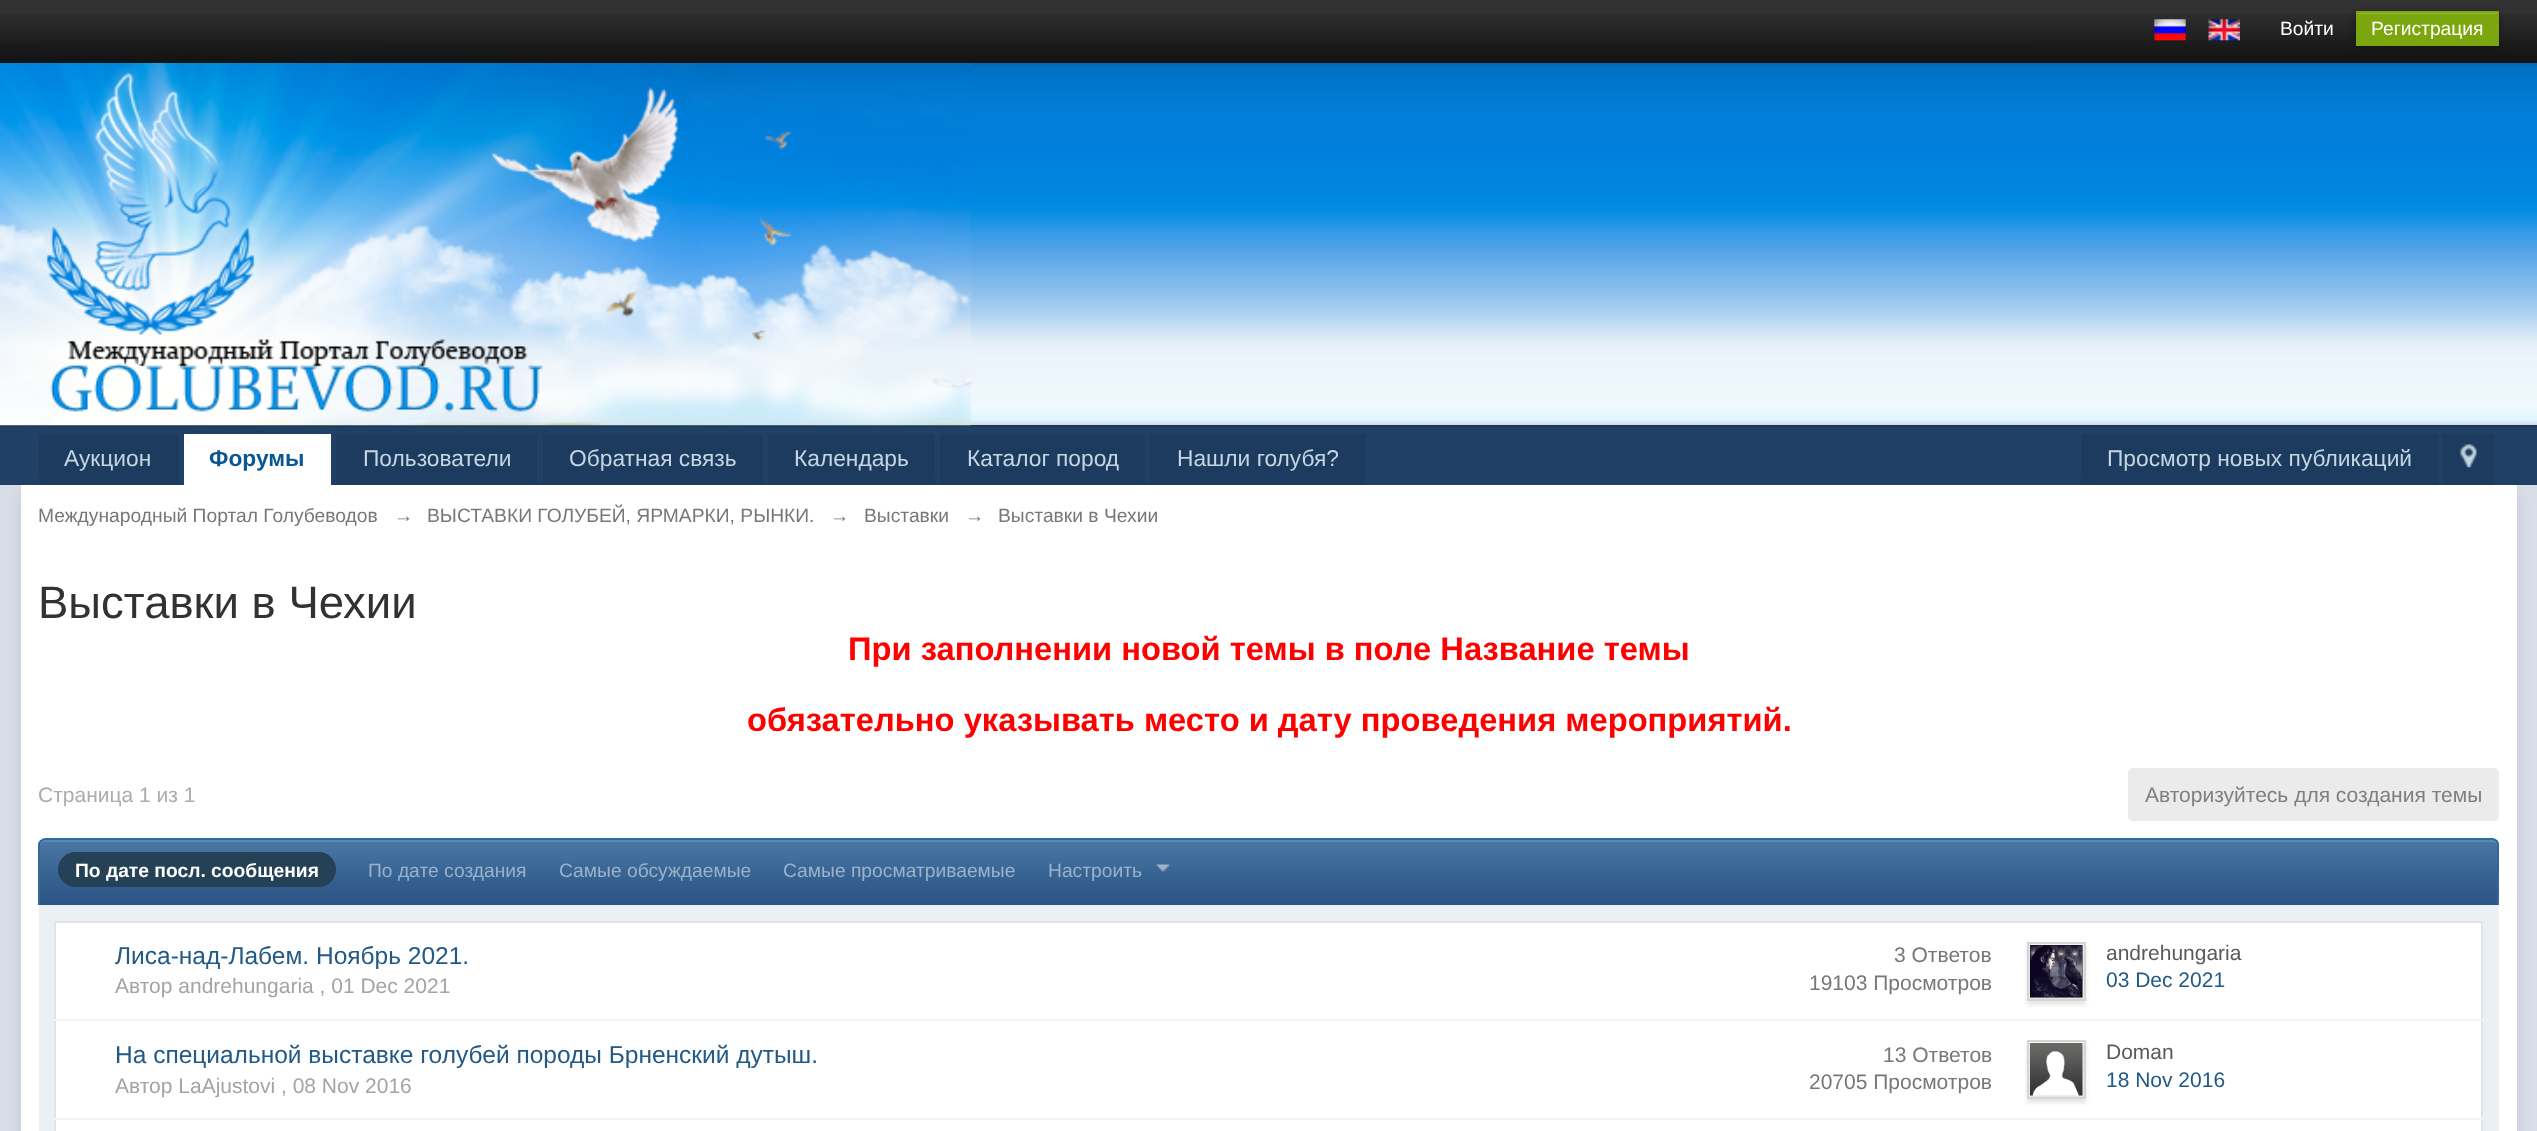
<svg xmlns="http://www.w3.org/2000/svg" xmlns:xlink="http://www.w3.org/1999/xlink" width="2537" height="1131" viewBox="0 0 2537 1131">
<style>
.cls-1{font:19.25px Liberation Sans;fill:#ffffff}
.cls-2{font:22.75px Liberation Sans;fill:#c5d5e2}
.cls-3{font:bold 22.75px Liberation Sans;fill:#0b5794}
.cls-4{font:19.25px Liberation Sans;fill:#777777}
.cls-5{font:45.5px Liberation Sans;fill:#323232}
.cls-6{font:bold 32.7px Liberation Sans;fill:#ff0000}
.cls-7{font:21px Liberation Sans;fill:#acacac}
.cls-8{font:21px Liberation Sans;fill:#7f7f7f}
.cls-9{font:bold 19.25px Liberation Sans;fill:#ffffff}
.cls-10{font:19.25px Liberation Sans;fill:#9cb2ca}
.cls-11{font:24.5px Liberation Sans;fill:#225985}
.cls-12{font:21px Liberation Sans;fill:#a4a4a4}
.cls-13{font:21px Liberation Sans;fill:#777777}
.cls-14{font:21px Liberation Sans;fill:#5a5a5a}
.cls-15{font:21px Liberation Sans;fill:#225985}
</style>
<rect width="100%" height="100%" fill="#d8dde8"/>
<rect fill="#323232" x="0" y="0" width="2537" height="14"/>
<image xlink:href="image0.png" x="0" y="14" width="2537" height="49"/>
<image xlink:href="image1.png" x="2154" y="19" width="32" height="22"/>
<image xlink:href="image2.png" x="2208" y="19" width="32" height="22"/>
<rect fill="#000000" fill-opacity="0.4" filter="blur(3.5px)" x="2356" y="12" width="143" height="35"/>
<rect fill="#7ba60d" x="2358" y="14" width="139" height="30"/>
<rect fill="#95b83d" x="2357" y="13" width="140" height="1"/>
<rect fill="none" stroke="#7ba60d" stroke-width="2" x="2357" y="12" width="141" height="33"/>
<image xlink:href="image3.png" x="971" y="63" width="1566" height="362"/>
<rect fill="#1b3759" x="0" y="425" width="2537" height="2"/>
<image xlink:href="image4.png" x="0" y="63" width="972" height="363"/>
<rect fill="#204066" x="0" y="427" width="2537" height="58"/>
<rect fill="#000000" fill-opacity="0.1" filter="blur(8px)" x="21" y="494" width="2496" height="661"/>
<rect fill="#1c3b5f" x="39" y="434" width="140" height="51"/>
<rect fill="#ffffff" x="184" y="434" width="147" height="51"/>
<rect fill="#1c3b5f" x="336" y="434" width="201" height="51"/>
<rect fill="#1c3b5f" x="543" y="434" width="220" height="51"/>
<rect fill="#1c3b5f" x="768" y="434" width="167" height="51"/>
<rect fill="#1c3b5f" x="940" y="434" width="205" height="51"/>
<rect fill="#1c3b5f" x="1150" y="434" width="215" height="51"/>
<rect fill="#1c3b5f" x="2081" y="434" width="357" height="51"/>
<rect fill="#1c3b5f" x="2443" y="434" width="51" height="51"/>
<image xlink:href="image5.png" x="2460" y="444" width="17" height="24"/>
<rect fill="#ffffff" x="21" y="485" width="2496" height="646"/>
<rect fill="#ebebeb" x="2128" y="768" width="371" height="53" rx="5"/>
<path fill="#2c5687" d="M45 840H2492C2495 840 2497 842 2497 845V905H40V845C40 842 42 840 45 840Z"/>
<image xlink:href="image6.png" x="38" y="840" width="2461" height="62"/>
<path fill="#528cbc" d="M46 842H2492C2495 842 2497 844 2497 847V845C2497 842 2495 840 2492 840H45C42 840 40 842 40 845V847C40 844 43 842 46 842Z"/>
<path fill="#316897" fill-rule="evenodd" d="M46 838H2492C2496 838 2499 841 2499 845V905H38V845C38 841 42 838 46 838ZM46 840H2492C2495 840 2497 842 2497 845V905H40V845C40 842 43 840 46 840Z"/>
<rect fill="#244156" x="58" y="852" width="278" height="35" rx="17.5"/>
<image xlink:href="image7.png" x="1156" y="864" width="14" height="8"/>
<rect fill="#ebf0f3" x="39" y="905" width="2460" height="226"/>
<rect fill="#ffffff" stroke="#dbe4ef" stroke-width="2" x="55" y="922" width="2427" height="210"/>
<rect fill="#f3f3f3" x="54" y="1019" width="2429" height="2"/>
<rect fill="#000000" fill-opacity="0.1" filter="blur(2px)" x="2027" y="945" width="59" height="60"/>
<rect fill="none" stroke="#d5d5d5" stroke-width="2" x="2028" y="943" width="57" height="57"/>
<image xlink:href="image8.png" x="2030" y="945" width="53" height="53"/>
<rect fill="#f3f3f3" x="54" y="1118" width="2429" height="2"/>
<rect fill="#000000" fill-opacity="0.1" filter="blur(2px)" x="2027" y="1043" width="59" height="60"/>
<rect fill="none" stroke="#d5d5d5" stroke-width="2" x="2028" y="1041" width="57" height="57"/>
<image xlink:href="image9.png" x="2030" y="1043" width="53" height="53"/>
<text class="cls-1" x="2280" y="35">Войти</text>
<text class="cls-1" x="2371" y="35">Регистрация</text>
<text class="cls-2" x="64" y="466">Аукцион</text>
<text class="cls-3" x="209" y="466">Форумы</text>
<text class="cls-2" x="363" y="466">Пользователи</text>
<text class="cls-2" x="569" y="466">Обратная связь</text>
<text class="cls-2" x="794" y="466">Календарь</text>
<text class="cls-2" x="967" y="466">Каталог пород</text>
<text class="cls-2" x="1177" y="466">Нашли голубя?</text>
<text class="cls-2" x="2107" y="466">Просмотр новых публикаций</text>
<text class="cls-4" x="38" y="522">Международный Портал Голубеводов</text>
<text class="cls-4" x="394" y="522">→</text>
<text class="cls-4" x="427" y="522">ВЫСТАВКИ ГОЛУБЕЙ, ЯРМАРКИ, РЫНКИ.</text>
<text class="cls-4" x="830" y="522">→</text>
<text class="cls-4" x="864" y="522">Выставки</text>
<text class="cls-4" x="965" y="522">→</text>
<text class="cls-4" x="998" y="522">Выставки в Чехии</text>
<text class="cls-5" x="38" y="618">Выставки в Чехии</text>
<text class="cls-6" x="848" y="660">При заполнении новой темы в поле Название темы</text>
<text class="cls-6" x="747" y="731">обязательно указывать место и дату проведения мероприятий.</text>
<text class="cls-7" x="38" y="802">Страница 1 из 1</text>
<text class="cls-8" x="2145" y="802">Авторизуйтесь для создания темы</text>
<text class="cls-9" x="75" y="877">По дате посл. сообщения</text>
<text class="cls-10" x="368" y="877">По дате создания</text>
<text class="cls-10" x="559" y="877">Самые обсуждаемые</text>
<text class="cls-10" x="783" y="877">Самые просматриваемые</text>
<text class="cls-10" x="1048" y="877">Настроить</text>
<text class="cls-11" x="115" y="964">Лиса-над-Лабем. Ноябрь 2021.</text>
<text class="cls-12" x="115" y="993">Автор andrehungaria , 01 Dec 2021</text>
<text class="cls-13" x="1894" y="962">3 Ответов</text>
<text class="cls-13" x="1809" y="990">19103 Просмотров</text>
<text class="cls-14" x="2106" y="960">andrehungaria</text>
<text class="cls-15" x="2106" y="987">03 Dec 2021</text>
<text class="cls-11" x="115" y="1063">На специальнoй выставке голубей породы Брненский дутыш.</text>
<text class="cls-12" x="115" y="1093">Автор LaAjustovi , 08 Nov 2016</text>
<text class="cls-13" x="1883" y="1062">13 Ответов</text>
<text class="cls-13" x="1809" y="1089">20705 Просмотров</text>
<text class="cls-14" x="2106" y="1059">Doman</text>
<text class="cls-15" x="2106" y="1087">18 Nov 2016</text>
</svg>
